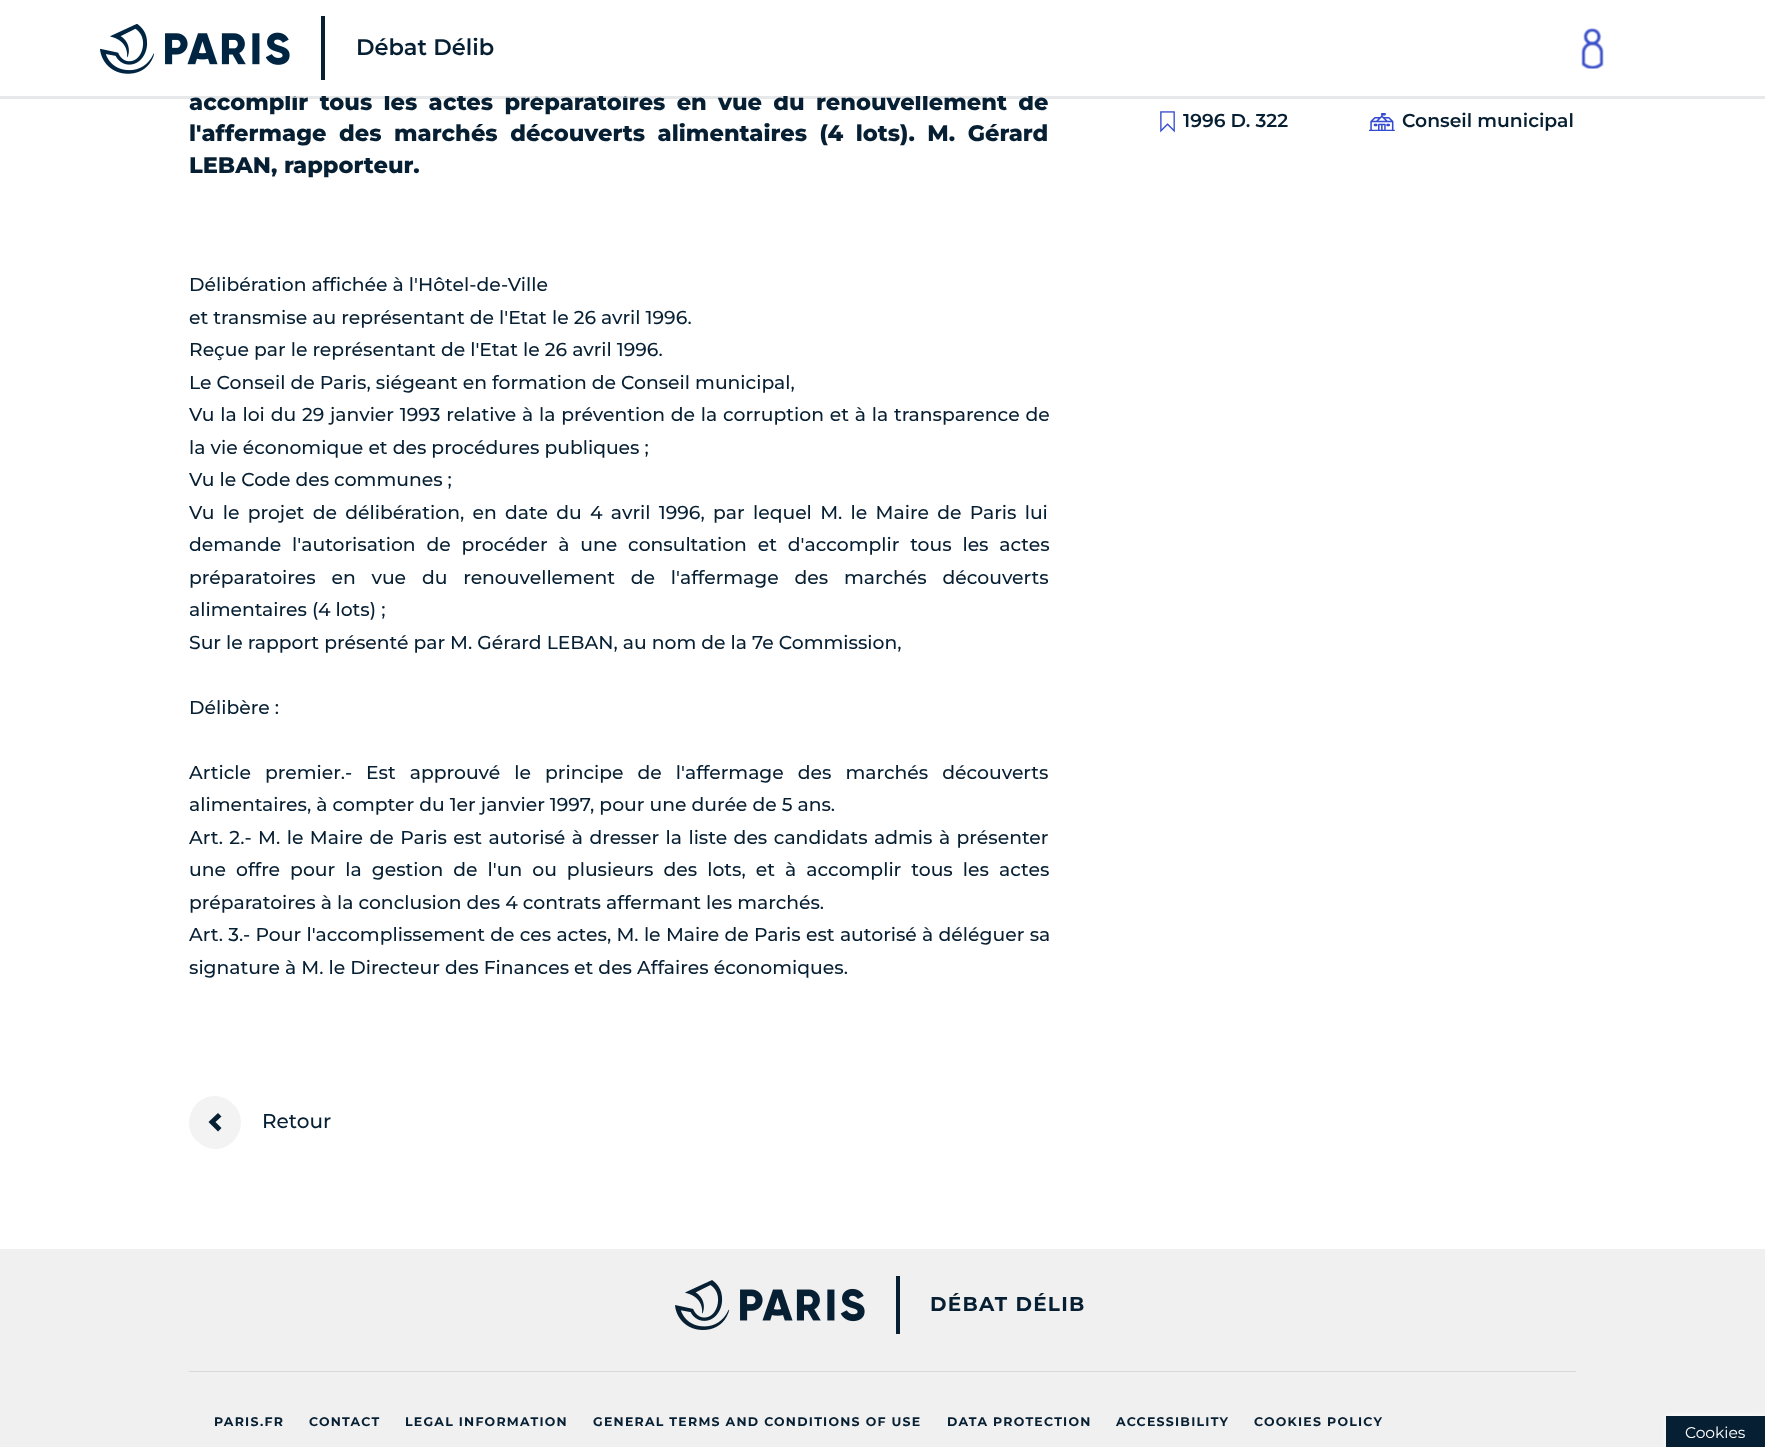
<svg xmlns="http://www.w3.org/2000/svg" xmlns:xlink="http://www.w3.org/1999/xlink" width="1765" height="1447" viewBox="0 0 1765 1447">
<style>
.cls-1{font:600 22.5px Montserrat;fill:#071f32}
.cls-2{font:800 22.5px Montserrat;fill:#071f32}
.cls-3{font:500 18.75px Montserrat;fill:#071f32}
.cls-4{font:600 18.75px Montserrat;fill:#071f32}
.cls-5{font:500 20px Montserrat;fill:#071f32}
.cls-6{font:bold 20px Montserrat;letter-spacing:1.25px;fill:#071f32}
.cls-7{font:bold 12.5px Montserrat;letter-spacing:1.25px;fill:#071f32}
.cls-8{font:15.5px Montserrat;fill:#ffffff}
</style>
<rect width="100%" height="100%" fill="#ffffff"/>
<rect fill="#071f32" fill-opacity="0.1" x="0" y="96" width="1765" height="3"/>
<image xlink:href="image0.png" x="100" y="24" width="190" height="50"/>
<rect fill="#071f32" x="321" y="16" width="4" height="64"/>
<rect fill="#061c2d" x="321" y="16" width="4" height="1"/>
<image xlink:href="image1.png" x="1581" y="28" width="23" height="41"/>
<image xlink:href="image2.png" x="1160" y="111" width="15" height="22"/>
<image xlink:href="image3.png" x="1369" y="113" width="26" height="18"/>
<path fill="#f4f3f3" d="M215 1096C221 1096 228 1099 232 1103C250 1118 239 1149 215 1149C209 1149 202 1146 198 1142C180 1127 191 1096 215 1096Z"/>
<path fill="#071f32" d="M215.5 1122L221.5 1116.5L218 1113L208.5 1122L218 1131.5L221.5 1128Z"/>
<rect fill="#f0f0f0" x="0" y="1249" width="1765" height="198"/>
<image xlink:href="image4.png" x="675" y="1280" width="190" height="50"/>
<rect fill="#071f32" x="896" y="1276" width="4" height="58"/>
<rect fill="#061c2d" x="896" y="1276" width="4" height="1"/>
<rect fill="#d9d9d9" x="189" y="1371" width="1387" height="1"/>
<rect fill="#ffffff" filter="blur(3px)" x="1666" y="1416" width="99" height="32"/>
<rect fill="#071f32" x="1666" y="1416" width="99" height="31"/>
<text class="cls-1" x="356" y="55">Débat Délib</text>
<text class="cls-2" x="189" y="110" word-spacing="4.75">accomplir tous les actes préparatoires en vue du renouvellement de</text>
<rect fill="#ffffff" x="285" y="91" width="749" height="5"/>
<text class="cls-2"><tspan x="189" y="141" word-spacing="6">l'affermage des marchés découverts alimentaires (4 lots). M. Gérard</tspan><tspan x="189" y="173">LEBAN, rapporteur.</tspan></text>
<text class="cls-3"><tspan x="189" y="291">Délibération affichée à l'Hôtel-de-Ville</tspan><tspan x="189" y="324">et transmise au représentant de l'Etat le 26 avril 1996.</tspan><tspan x="189" y="356">Reçue par le représentant de l'Etat le 26 avril 1996.</tspan><tspan x="189" y="389">Le Conseil de Paris, siégeant en formation de Conseil municipal,</tspan><tspan x="189" y="421" word-spacing="0.75">Vu la loi du 29 janvier 1993 relative à la prévention de la corruption et à la transparence de</tspan><tspan x="189" y="454">la vie économique et des procédures publiques ;</tspan><tspan x="189" y="486">Vu le Code des communes ;</tspan><tspan x="189" y="519" word-spacing="3.25">Vu le projet de délibération, en date du 4 avril 1996, par lequel M. le Maire de Paris lui</tspan><tspan x="189" y="551" word-spacing="5.75">demande l'autorisation de procéder à une consultation et d'accomplir tous les actes</tspan><tspan x="189" y="584" word-spacing="10.75">préparatoires en vue du renouvellement de l'affermage des marchés découverts</tspan><tspan x="189" y="616">alimentaires (4 lots) ;</tspan><tspan x="189" y="649">Sur le rapport présenté par M. Gérard LEBAN, au nom de la 7e Commission,</tspan></text>
<text class="cls-3" x="189" y="714">Délibère :</text>
<text class="cls-3"><tspan x="189" y="779" word-spacing="9">Article premier.- Est approuvé le principe de l'affermage des marchés découverts</tspan><tspan x="189" y="811">alimentaires, à compter du 1er janvier 1997, pour une durée de 5 ans.</tspan><tspan x="189" y="844" word-spacing="1.4">Art. 2.- M. le Maire de Paris est autorisé à dresser la liste des candidats admis à présenter</tspan><tspan x="189" y="876" word-spacing="5">une offre pour la gestion de l'un ou plusieurs des lots, et à accomplir tous les actes</tspan><tspan x="189" y="909">préparatoires à la conclusion des 4 contrats affermant les marchés.</tspan><tspan x="189" y="941" word-spacing="0.25">Art. 3.- Pour l'accomplissement de ces actes, M. le Maire de Paris est autorisé à déléguer sa</tspan><tspan x="189" y="974">signature à M. le Directeur des Finances et des Affaires économiques.</tspan></text>
<text class="cls-4" x="1183" y="127">1996 D. 322</text>
<text class="cls-4" x="1402" y="127">Conseil municipal</text>
<text class="cls-5" x="262" y="1128">Retour</text>
<text class="cls-6" x="930" y="1311">DÉBAT DÉLIB</text>
<text class="cls-7" x="214" y="1426">PARIS.FR</text>
<text class="cls-7" x="309" y="1426">CONTACT</text>
<text class="cls-7" x="405" y="1426">LEGAL INFORMATION</text>
<text class="cls-7" x="593" y="1426">GENERAL TERMS AND CONDITIONS OF USE</text>
<text class="cls-7" x="947" y="1426">DATA PROTECTION</text>
<text class="cls-7" x="1116" y="1426">ACCESSIBILITY</text>
<text class="cls-7" x="1254" y="1426">COOKIES POLICY</text>
<text class="cls-8" x="1685" y="1438">Cookies</text>
</svg>
